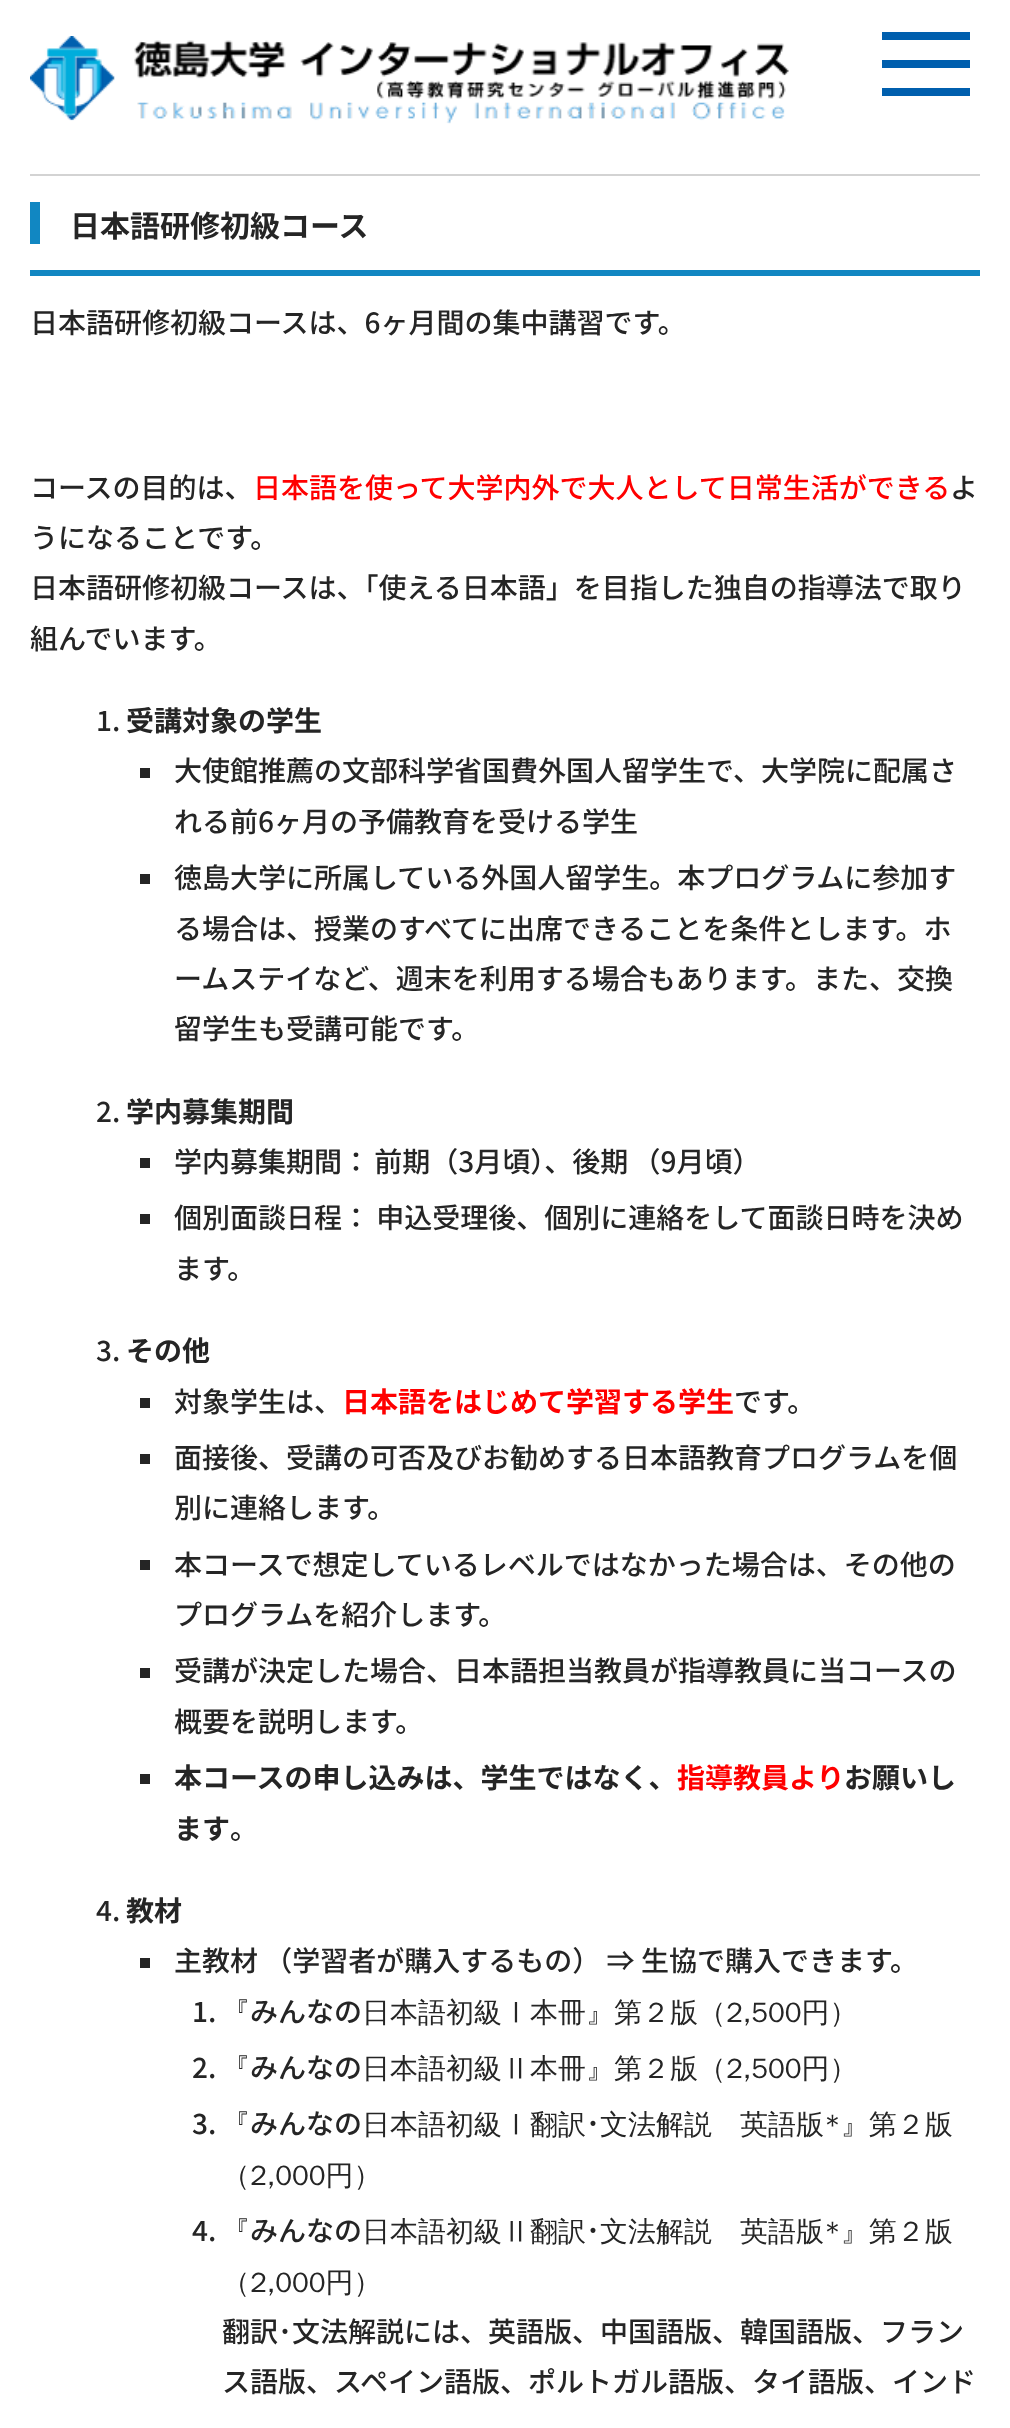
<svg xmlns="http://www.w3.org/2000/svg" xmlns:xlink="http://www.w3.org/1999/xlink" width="1010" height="2428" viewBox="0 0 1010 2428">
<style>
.cls-1{font:bold 30px Noto Sans JP;fill:#252525}
.cls-2{font:500 28px Noto Sans JP;fill:#252525}
.cls-3{font:500 28px Noto Sans JP;fill:#ff0000}
.cls-4{font:bold 28px Noto Sans JP;fill:#252525}
.cls-5{font:bold 28px Noto Sans JP;fill:#ff0000}
.cls-6{font:500 28px WenQuanYi Zen Hei;fill:#252525}
</style>
<rect width="100%" height="100%" fill="#ffffff"/>
<image xlink:href="image0.png" x="30" y="36" width="759" height="88"/>
<rect fill="#005fae" x="882" y="32" width="88" height="8"/>
<rect fill="#005fae" x="882" y="60" width="88" height="8"/>
<rect fill="#005fae" x="882" y="88" width="88" height="8"/>
<rect fill="#d3d3d3" x="30" y="174" width="950" height="2"/>
<rect fill="#1187c2" x="30" y="270" width="950" height="6"/>
<rect fill="#1187c2" x="30" y="202" width="10" height="42"/>
<rect fill="#252525" x="140" y="768" width="10" height="10"/>
<rect fill="#252525" x="140" y="874" width="10" height="10"/>
<rect fill="#252525" x="140" y="1158" width="10" height="10"/>
<rect fill="#252525" x="140" y="1214" width="10" height="10"/>
<rect fill="#252525" x="140" y="1398" width="10" height="10"/>
<rect fill="#252525" x="140" y="1454" width="10" height="10"/>
<rect fill="#252525" x="140" y="1560" width="10" height="10"/>
<rect fill="#252525" x="140" y="1668" width="10" height="10"/>
<rect fill="#252525" x="140" y="1774" width="10" height="10"/>
<rect fill="#252525" x="140" y="1958" width="10" height="10"/>
<text class="cls-1" x="70" y="237">日本語研修初級コース</text>
<text class="cls-2" x="30" y="333">日本語研修初級コースは、6ヶ月間の集中講習です。</text>
<text class="cls-2" x="30" y="498">コースの目的は、</text>
<text class="cls-3" x="253" y="498">日本語を使って大学内外で大人として日常生活ができる</text>
<text class="cls-2" x="950" y="498">よ</text>
<text class="cls-2"><tspan x="30" y="548">うになることです。</tspan><tspan x="30" y="598">日本語研修初級コースは、「使える日本語」を目指した独自の指導法で取り</tspan><tspan x="30" y="649">組んでいます。</tspan></text>
<text class="cls-2" x="96" y="731">1.</text>
<text class="cls-4" x="126" y="731">受講対象の学生</text>
<text class="cls-2"><tspan x="174" y="781">大使館推薦の文部科学省国費外国人留学生で、大学院に配属さ</tspan><tspan x="174" y="832">れる前6ヶ月の予備教育を受ける学生</tspan></text>
<text class="cls-2"><tspan x="174" y="888">徳島大学に所属している外国人留学生。本プログラムに参加す</tspan><tspan x="174" y="939">る場合は、授業のすべてに出席できることを条件とします。ホ</tspan><tspan x="174" y="989">ームステイなど、週末を利用する場合もあります。また、交換</tspan><tspan x="174" y="1039">留学生も受講可能です。</tspan></text>
<text class="cls-2" x="96" y="1122">2.</text>
<text class="cls-4" x="126" y="1122">学内募集期間</text>
<text class="cls-2" x="174" y="1172" word-spacing="-2">学内募集期間： 前期（3月頃）、後期 （9月頃）</text>
<text class="cls-2"><tspan x="174" y="1228">個別面談日程： 申込受理後、個別に連絡をして面談日時を決め</tspan><tspan x="174" y="1279">ます。</tspan></text>
<text class="cls-2" x="96" y="1361">3.</text>
<text class="cls-4" x="126" y="1361">その他</text>
<text class="cls-2" x="174" y="1412">対象学生は、</text>
<text class="cls-5" x="342" y="1412">日本語をはじめて学習する学生</text>
<text class="cls-2" x="734" y="1412">です。</text>
<text class="cls-2"><tspan x="174" y="1468">面接後、受講の可否及びお勧めする日本語教育プログラムを個</tspan><tspan x="174" y="1518">別に連絡します。</tspan></text>
<text class="cls-2"><tspan x="174" y="1575">本コースで想定しているレベルではなかった場合は、その他の</tspan><tspan x="174" y="1625">プログラムを紹介します。</tspan></text>
<text class="cls-2"><tspan x="174" y="1681">受講が決定した場合、日本語担当教員が指導教員に当コースの</tspan><tspan x="174" y="1732">概要を説明します。</tspan></text>
<text class="cls-4" x="174" y="1788">本コースの申し込みは、学生ではなく、</text>
<text class="cls-5" x="677" y="1788">指導教員より</text>
<text class="cls-4" x="844" y="1788">お願いし</text>
<text class="cls-4" x="174" y="1839">ます</text>
<text class="cls-2" x="230" y="1839">。</text>
<text class="cls-2" x="96" y="1921">4.</text>
<text class="cls-4" x="126" y="1921">教材</text>
<text class="cls-2" x="174" y="1971">主教材 （学習者が購入するもの） ⇒ 生協で購入できます。</text>
<text class="cls-2" x="192" y="2022">1.</text>
<text class="cls-6" x="222" y="2022">『</text>
<text class="cls-2" x="250" y="2022">みんなの</text>
<text class="cls-6" x="362" y="2022">日本語初級Ⅰ本冊』第２版（2,500円）</text>
<text class="cls-2" x="192" y="2078">2.</text>
<text class="cls-6" x="222" y="2078">『</text>
<text class="cls-2" x="250" y="2078">みんなの</text>
<text class="cls-6" x="362" y="2078">日本語初級Ⅱ本冊』第２版（2,500円）</text>
<text class="cls-2" x="192" y="2134">3.</text>
<text class="cls-6" x="222" y="2134">『</text>
<text class="cls-2" x="250" y="2134">みんなの</text>
<text class="cls-6" x="362" y="2134">日本語初級Ⅰ翻訳</text>
<text class="cls-2" x="586" y="2134">･</text>
<text class="cls-6" x="600" y="2134">文法解説　英語版*』第２版</text>
<text class="cls-6" x="222" y="2185">（2,000円）</text>
<text class="cls-2" x="192" y="2241">4.</text>
<text class="cls-6" x="222" y="2241">『</text>
<text class="cls-2" x="250" y="2241">みんなの</text>
<text class="cls-6" x="362" y="2241">日本語初級Ⅱ翻訳</text>
<text class="cls-2" x="586" y="2241">･</text>
<text class="cls-6" x="600" y="2241">文法解説　英語版*』第２版</text>
<text class="cls-6" x="222" y="2292">（2,000円）</text>
<text class="cls-2"><tspan x="222" y="2342">翻訳･文法解説には、英語版、中国語版、韓国語版、フラン</tspan><tspan x="222" y="2392">ス語版、スペイン語版、ポルトガル語版、タイ語版、インド</tspan></text>
</svg>
